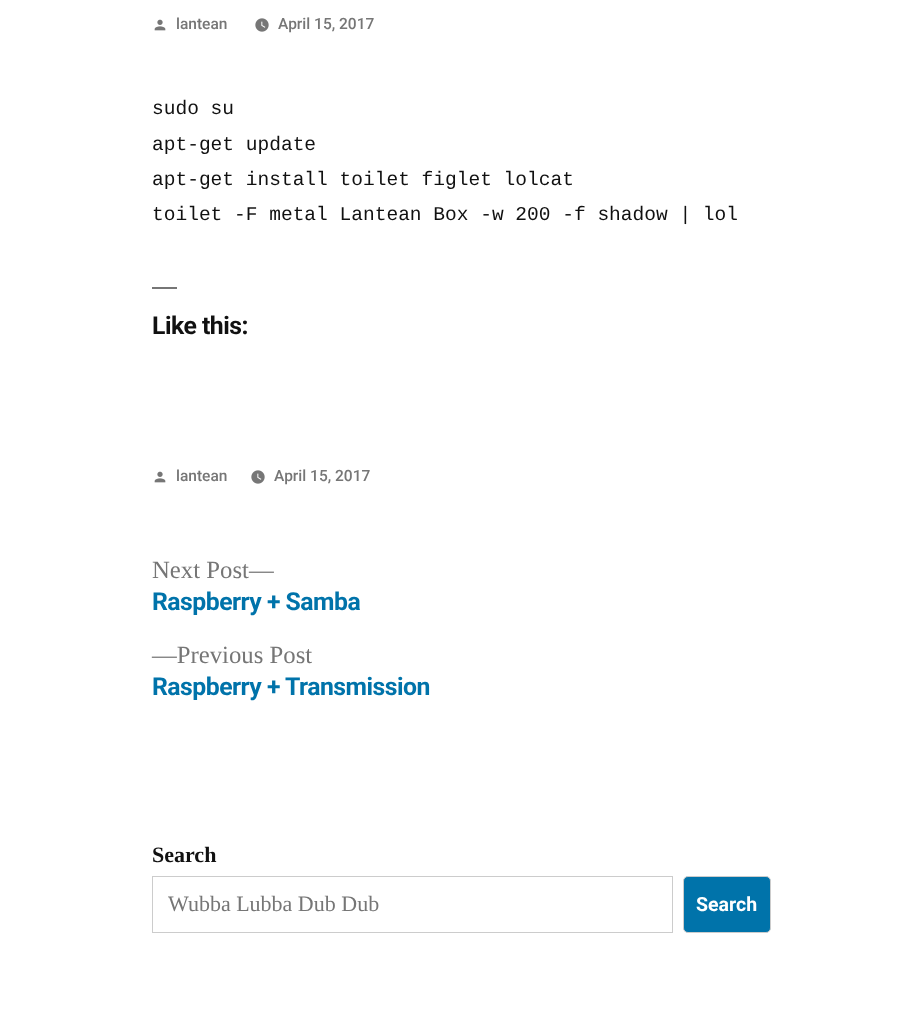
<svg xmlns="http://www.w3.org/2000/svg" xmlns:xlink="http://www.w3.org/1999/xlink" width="923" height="1032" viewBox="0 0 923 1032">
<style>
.cls-1{font:500 15.5px Roboto;fill:#767676}
.cls-2{font:19.55px Liberation Mono;fill:#111111}
.cls-3{font:bold 24.75px Roboto;letter-spacing:-0.5px;fill:#111111}
.cls-4{font:24.75px Liberation Serif;fill:#767676}
.cls-5{font:bold 24.75px Roboto;letter-spacing:-0.5px;fill:#0073aa}
.cls-6{font:bold 22px Liberation Serif;fill:#111111}
.cls-7{font:22px Liberation Serif;fill:#767676}
.cls-8{font:bold 19.55px Roboto;fill:#ffffff}
</style>
<rect width="100%" height="100%" fill="#ffffff"/>
<image xlink:href="image0.png" x="154" y="19" width="12" height="12"/>
<image xlink:href="image1.png" x="255" y="18" width="14" height="14"/>
<rect fill="#767676" x="152" y="287" width="25" height="2"/>
<image xlink:href="image0.png" x="154" y="471" width="12" height="12"/>
<image xlink:href="image1.png" x="251" y="470" width="14" height="14"/>
<rect fill="none" stroke="#cccccc" x="152.5" y="876.5" width="520" height="56"/>
<rect fill="#0073aa" stroke="#cccccc" x="683.5" y="876.5" width="87" height="56" rx="4.5"/>
<text class="cls-1" x="176" y="29">lantean</text>
<text class="cls-1" x="278" y="29">April 15, 2017</text>
<text class="cls-2"><tspan x="152" y="114">sudo su</tspan><tspan x="152" y="150">apt-get update</tspan><tspan x="152" y="185">apt-get install toilet figlet lolcat</tspan><tspan x="152" y="220">toilet -F metal Lantean Box -w 200 -f shadow | lol</tspan></text>
<text class="cls-3" x="152" y="334">Like this:</text>
<text class="cls-1" x="176" y="481">lantean</text>
<text class="cls-1" x="274" y="481">April 15, 2017</text>
<text class="cls-4" x="152" y="578">Next Post—</text>
<text class="cls-5" x="152" y="610">Raspberry + Samba</text>
<text class="cls-4" x="152" y="663">—Previous Post</text>
<text class="cls-5" x="152" y="695">Raspberry + Transmission</text>
<text class="cls-6" x="152" y="862">Search</text>
<text class="cls-7" x="168" y="911">Wubba Lubba Dub Dub</text>
<text class="cls-8" x="696" y="911">Search</text>
</svg>
